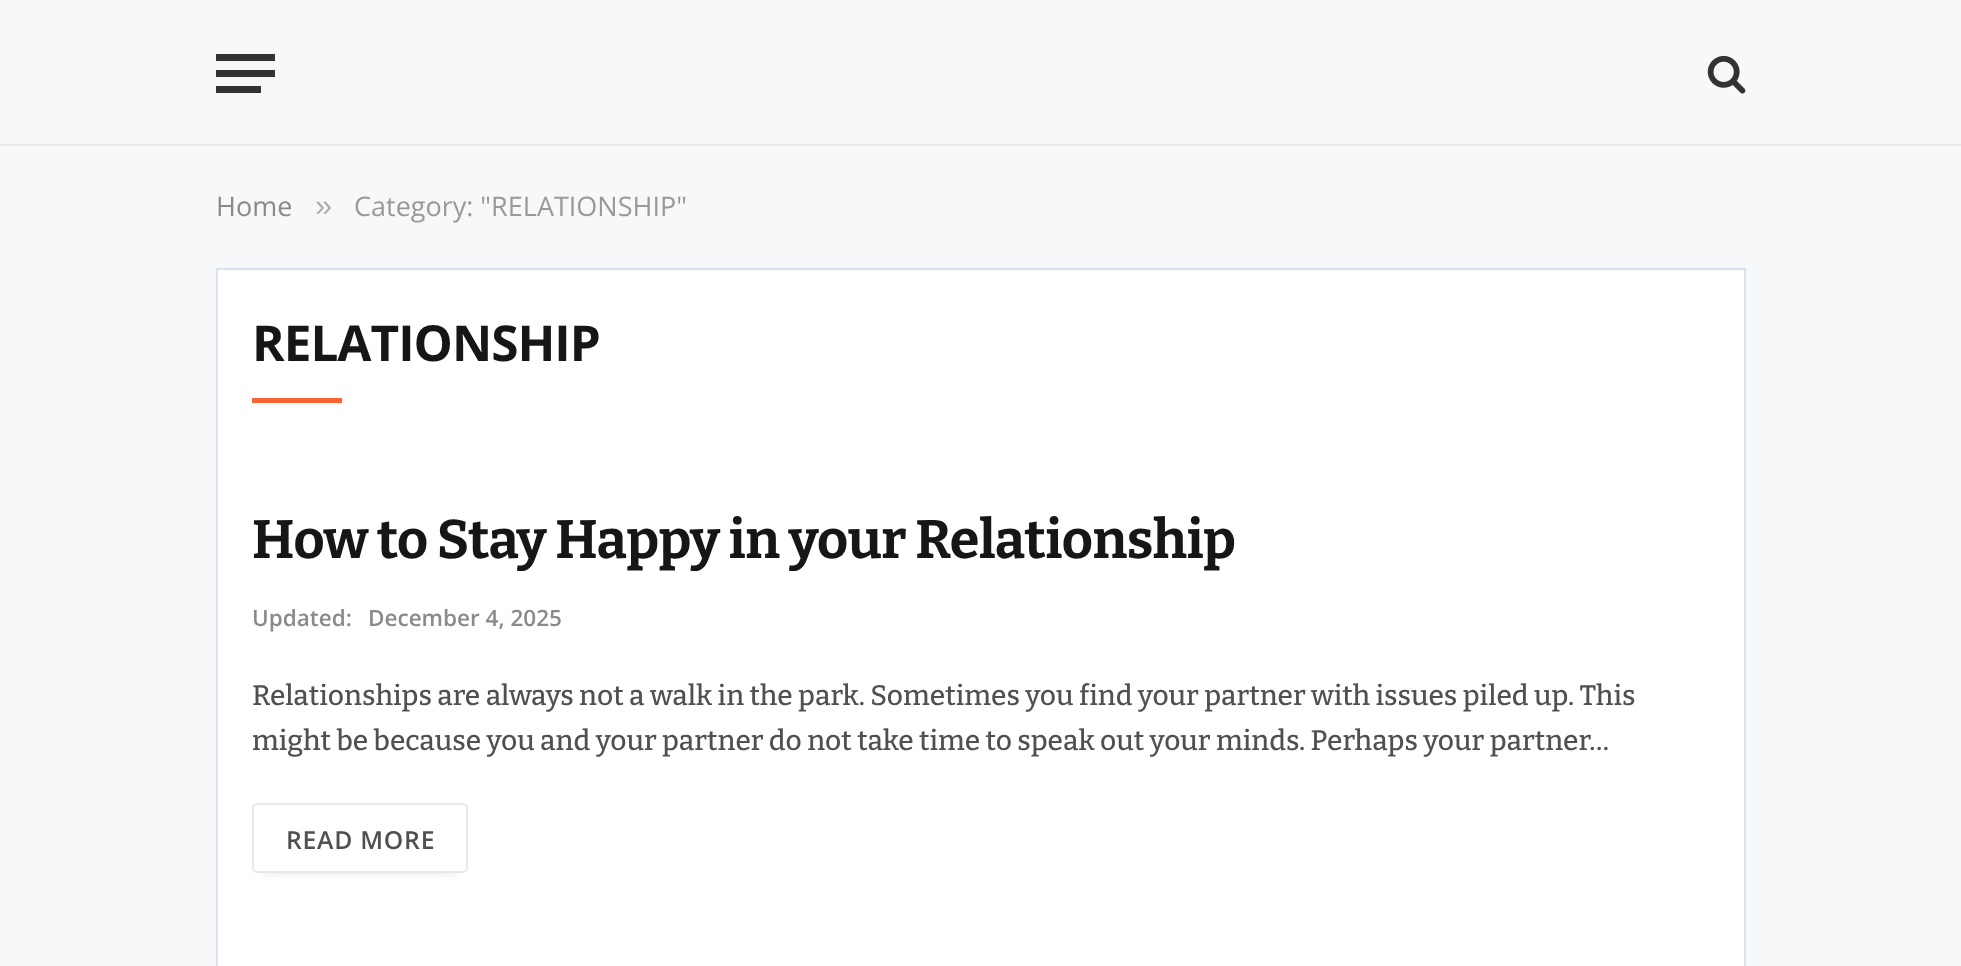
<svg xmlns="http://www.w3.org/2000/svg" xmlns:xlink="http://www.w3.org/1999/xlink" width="1961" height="966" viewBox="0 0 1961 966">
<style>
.cls-1{font:27px Open Sans;fill:#8a8a8a}
.cls-2{font:31px Liberation Sans;fill:#acacac}
.cls-3{font:27px Open Sans;fill:#999999}
.cls-4{font:bold 49.5px Open Sans;letter-spacing:-1px;fill:#161616}
.cls-5{font:bold 54px Bitter;letter-spacing:-0.55px;fill:#161616}
.cls-6{font:600 22.5px Open Sans;fill:#8a8a8a}
.cls-7{font:500 28.1px Bitter;fill:#505050}
.cls-8{font:600 24.75px Open Sans;letter-spacing:0.75px;fill:#505050}
</style>
<defs>
<clipPath id="clip1"><rect x="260" y="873" width="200" height="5"/></clipPath>
</defs>
<rect width="100%" height="100%" fill="#f6f8fa"/>
<rect fill="#e8e8e8" x="0" y="144" width="1961" height="2"/>
<rect fill="#333333" x="216" y="86" width="45" height="7"/>
<rect fill="#333333" x="216" y="54" width="59" height="7"/>
<rect fill="#333333" x="216" y="70" width="59" height="7"/>
<image xlink:href="image0.png" x="1707" y="55" width="39" height="39"/>
<rect fill="#ffffff" stroke="#dbe2ec" stroke-width="2" x="217" y="269" width="1528" height="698"/>
<rect fill="#fc6332" x="252" y="398" width="90" height="5"/>
<g clip-path="url(#clip1)">
<rect fill="#000000" fill-opacity="0.16" filter="blur(8px)" x="261" y="817" width="198" height="52"/>
</g>
<rect fill="none" stroke="#e8e8e8" stroke-width="2" x="253" y="804" width="214" height="68" rx="4"/>
<text class="cls-1" x="216" y="216">Home</text>
<text class="cls-2" x="315" y="216">»</text>
<text class="cls-3" x="354" y="216">Category: "RELATIONSHIP"</text>
<text class="cls-4" x="252" y="361">RELATIONSHIP</text>
<text class="cls-5" x="252" y="558">How to Stay Happy in your Relationship</text>
<text class="cls-6" x="252" y="626">Updated:</text>
<text class="cls-6" x="368" y="626">December 4, 2025</text>
<text class="cls-7"><tspan x="252" y="705">Relationships are always not a walk in the park. Sometimes you find your partner with issues piled up. This</tspan><tspan x="252" y="750">might be because you and your partner do not take time to speak out your minds. Perhaps your partner…</tspan></text>
<text class="cls-8" x="286" y="849">READ MORE</text>
</svg>
